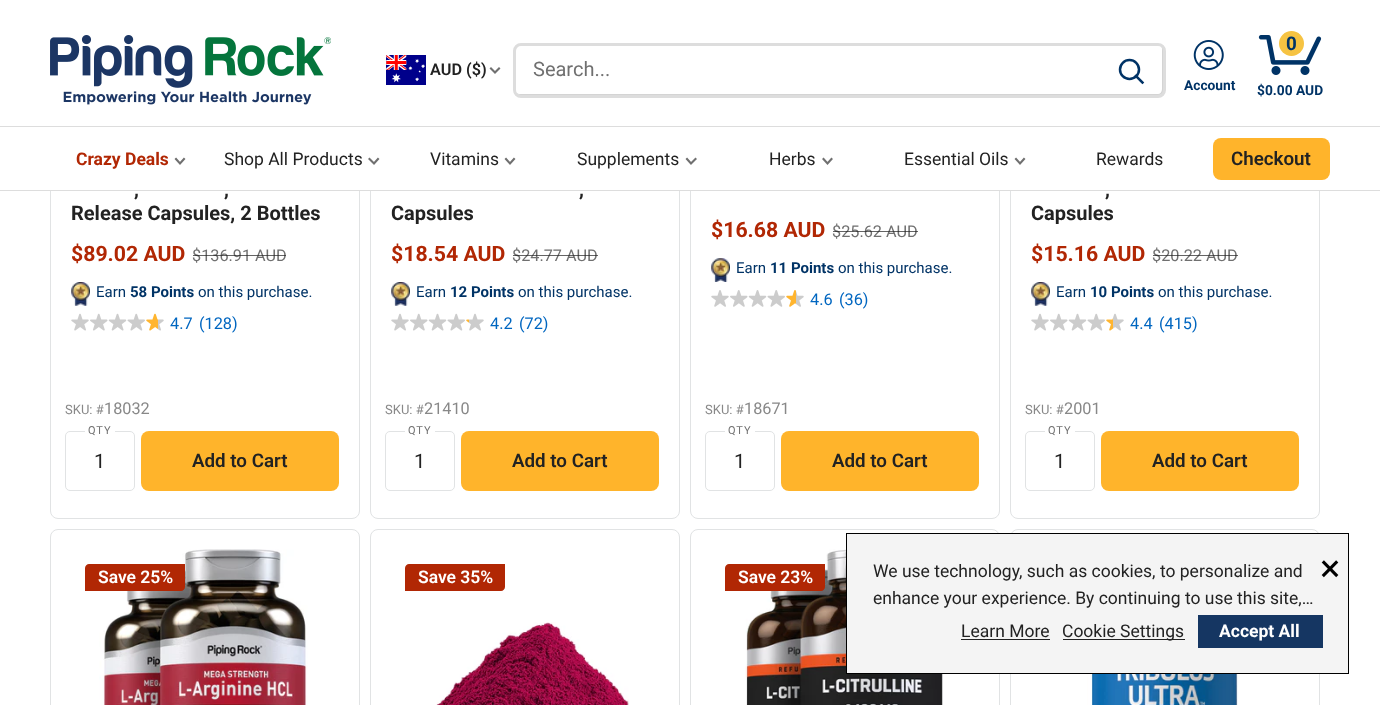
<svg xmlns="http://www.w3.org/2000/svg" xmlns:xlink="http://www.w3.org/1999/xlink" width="1380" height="705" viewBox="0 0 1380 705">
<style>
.cls-1{font:600 16.25px Roboto;fill:#222222}
.cls-2{font:20px Roboto;fill:#707070}
.cls-3{font:bold 13.75px Roboto;fill:#003366}
.cls-4{font:bold 18.75px Roboto;fill:#003366}
.cls-5{font:bold 17.5px Roboto;fill:#b12704}
.cls-6{font:17.5px Roboto;fill:#222222}
.cls-7{font:600 18.75px Roboto;fill:#222222}
.cls-8{font:bold 20px Roboto;fill:#222222}
.cls-9{font:bold 21.25px Roboto;fill:#b12704}
.cls-10{font:16.25px Roboto;fill:#707070}
.cls-11{font:15px Roboto;fill:#003366}
.cls-12{font:bold 15px Roboto;fill:#003366}
.cls-13{font:16.25px Roboto;fill:#0066c0}
.cls-14{font:13px Roboto;fill:#888888}
.cls-15{font:16.25px Roboto;fill:#888888}
.cls-16{font:11px Roboto;letter-spacing:1px;fill:#707070}
.cls-17{font:20px Roboto;fill:#222222}
.cls-18{font:600 17.5px Roboto;fill:#ffffff}
.cls-19{font:38px Roboto;fill:#000000}
.cls-20{font:bold 17.5px Roboto;fill:#ffffff}
</style>
<rect width="100%" height="100%" fill="#ffffff"/>
<rect fill="none" stroke="#e1e3e4" x="50.5" y="-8.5" width="309" height="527" rx="7.5"/>
<rect fill="none" stroke="#e1e3e4" x="370.5" y="-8.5" width="309" height="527" rx="7.5"/>
<rect fill="none" stroke="#e1e3e4" x="690.5" y="-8.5" width="309" height="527" rx="7.5"/>
<rect fill="none" stroke="#e1e3e4" x="1010.5" y="-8.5" width="309" height="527" rx="7.5"/>
<rect fill="#ffffff" x="50" y="0" width="1270" height="126"/>
<image xlink:href="image0.png" x="50" y="35" width="281" height="70"/>
<image xlink:href="image1.png" x="386" y="55" width="40" height="30"/>
<path fill="none" stroke="#707070" stroke-width="2.1" stroke-linecap="square" d="M499 68.5L495 72.5L491 68.5"/>
<path fill="#d4d4d4" d="M516 93C517 94 519 95 520 95H1159C1162 95 1164 93 1164 90V50C1164 48 1163 46 1161 45C1161 46 1162 47 1162 49V89C1162 92 1160 94 1158 94H519Z"/>
<rect fill="none" stroke="#dddddd" stroke-width="3" x="514.5" y="44.5" width="650" height="52" rx="6.5"/>
<path fill="none" stroke="#003366" stroke-width="2.5" stroke-linecap="square" d="M1142.5 82.5L1136 76"/>
<circle fill="none" stroke="#003366" stroke-width="2.5" cx="1129.5" cy="69.5" r="9.5"/>
<image xlink:href="image2.png" x="1193" y="40" width="31" height="30"/>
<image xlink:href="image3.png" x="1258" y="35" width="64" height="40"/>
<circle fill="#f6c342" cx="1291.5" cy="43.5" r="12.5"/>
<rect fill="#ffffff" x="50" y="127" width="1270" height="63"/>
<rect fill="#dddddd" x="0" y="126" width="1380" height="1"/>
<rect fill="#dddddd" x="0" y="190" width="1380" height="1"/>
<path fill="none" stroke="#707070" stroke-width="2.1" stroke-linecap="square" d="M184 159L180 163.5L176 159"/>
<path fill="none" stroke="#707070" stroke-width="2.1" stroke-linecap="square" d="M378 159L374 163.5L369.5 159"/>
<path fill="none" stroke="#707070" stroke-width="2.1" stroke-linecap="square" d="M514 159L510 163.5L506 159"/>
<path fill="none" stroke="#707070" stroke-width="2.1" stroke-linecap="square" d="M695.5 159L691 163.5L687 159"/>
<path fill="none" stroke="#707070" stroke-width="2.1" stroke-linecap="square" d="M831.5 159L827.5 163.5L823.5 159"/>
<path fill="none" stroke="#707070" stroke-width="2.1" stroke-linecap="square" d="M1024 159L1020 163.5L1016 159"/>
<rect fill="#ffb42b" x="1213" y="138" width="117" height="42" rx="8"/>
<image xlink:href="image4.png" x="71" y="282" width="19" height="24"/>
<image xlink:href="image5.png" x="71" y="313" width="18" height="18"/>
<image xlink:href="image6.png" x="90" y="313" width="18" height="18"/>
<image xlink:href="image7.png" x="108" y="313" width="19" height="18"/>
<image xlink:href="image8.png" x="127" y="313" width="18" height="18"/>
<image xlink:href="image9.png" x="146" y="313" width="18" height="18"/>
<rect fill="none" stroke="#e1e3e4" x="65.5" y="431.5" width="69" height="59" rx="4.5"/>
<rect fill="#ffffff" x="85" y="431" width="30" height="1"/>
<rect fill="#ffb42b" x="141" y="431" width="198" height="60" rx="8"/>
<image xlink:href="image4.png" x="391" y="282" width="19" height="24"/>
<image xlink:href="image5.png" x="391" y="313" width="18" height="18"/>
<image xlink:href="image6.png" x="410" y="313" width="18" height="18"/>
<image xlink:href="image7.png" x="428" y="313" width="19" height="18"/>
<image xlink:href="image8.png" x="447" y="313" width="18" height="18"/>
<image xlink:href="image10.png" x="466" y="313" width="18" height="18"/>
<rect fill="none" stroke="#e1e3e4" x="385.5" y="431.5" width="69" height="59" rx="4.5"/>
<rect fill="#ffffff" x="405" y="431" width="30" height="1"/>
<rect fill="#ffb42b" x="461" y="431" width="198" height="60" rx="8"/>
<image xlink:href="image11.png" x="711" y="258" width="19" height="24"/>
<image xlink:href="image12.png" x="711" y="290" width="18" height="17"/>
<image xlink:href="image13.png" x="730" y="290" width="18" height="17"/>
<image xlink:href="image14.png" x="748" y="290" width="19" height="17"/>
<image xlink:href="image15.png" x="767" y="290" width="18" height="17"/>
<image xlink:href="image16.png" x="786" y="290" width="18" height="17"/>
<rect fill="none" stroke="#e1e3e4" x="705.5" y="431.5" width="69" height="59" rx="4.5"/>
<rect fill="#ffffff" x="725" y="431" width="30" height="1"/>
<rect fill="#ffb42b" x="781" y="431" width="198" height="60" rx="8"/>
<image xlink:href="image4.png" x="1031" y="282" width="19" height="24"/>
<image xlink:href="image5.png" x="1031" y="313" width="18" height="18"/>
<image xlink:href="image6.png" x="1050" y="313" width="18" height="18"/>
<image xlink:href="image7.png" x="1068" y="313" width="19" height="18"/>
<image xlink:href="image8.png" x="1087" y="313" width="18" height="18"/>
<image xlink:href="image17.png" x="1106" y="313" width="18" height="18"/>
<rect fill="none" stroke="#e1e3e4" x="1025.5" y="431.5" width="69" height="59" rx="4.5"/>
<rect fill="#ffffff" x="1045" y="431" width="30" height="1"/>
<rect fill="#ffb42b" x="1101" y="431" width="198" height="60" rx="8"/>
<rect fill="none" stroke="#e1e3e4" x="50.5" y="529.5" width="309" height="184" rx="7.5"/>
<image xlink:href="image18.png" x="99" y="549" width="209" height="156"/>
<path fill="#b12704" d="M89 564H185V587C185 589 183 591 181 591H85V568C85 566 87 564 89 564Z"/>
<rect fill="none" stroke="#e1e3e4" x="370.5" y="529.5" width="309" height="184" rx="7.5"/>
<path fill="#b12704" d="M409 564H505V587C505 589 503 591 501 591H405V568C405 566 407 564 409 564Z"/>
<image xlink:href="image19.png" x="436" y="622" width="193" height="83"/>
<rect fill="none" stroke="#e1e3e4" x="690.5" y="529.5" width="309" height="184" rx="7.5"/>
<image xlink:href="image20.png" x="745" y="549" width="202" height="156"/>
<path fill="#b12704" d="M729 564H825V587C825 589 823 591 821 591H725V568C725 566 727 564 729 564Z"/>
<rect fill="none" stroke="#e1e3e4" x="1010.5" y="529.5" width="309" height="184" rx="7.5"/>
<image xlink:href="image21.png" x="1087" y="674" width="152" height="31"/>
<rect fill="#f4f4f4" stroke="#000000" x="846.5" y="533.5" width="502" height="140"/>
<rect fill="#222222" x="961" y="639" width="89" height="1"/>
<rect fill="#222222" x="1063" y="639" width="122" height="1"/>
<rect fill="#153662" x="1198" y="615" width="125" height="33"/>
<text class="cls-1" x="430" y="75">AUD ($)</text>
<text class="cls-2" x="533" y="76">Search...</text>
<text class="cls-3" x="1184" y="90">Account</text>
<text class="cls-4" x="1286" y="50">0</text>
<text class="cls-3" x="1257" y="95">$0.00 AUD</text>
<text class="cls-5" x="76" y="165">Crazy Deals</text>
<text class="cls-6" x="224" y="165">Shop All Products</text>
<text class="cls-6" x="430" y="165">Vitamins</text>
<text class="cls-6" x="577" y="165">Supplements</text>
<text class="cls-6" x="769" y="165">Herbs</text>
<text class="cls-6" x="904" y="165">Essential Oils</text>
<text class="cls-6" x="1096" y="165">Rewards</text>
<text class="cls-7" x="1231" y="165">Checkout</text>
<text class="cls-8" x="134" y="196">,</text>
<text class="cls-8" x="224" y="196">,</text>
<text class="cls-8" x="71" y="220">Release Capsules, 2 Bottles</text>
<text class="cls-9" x="71" y="261">$89.02 AUD</text>
<text class="cls-10" x="192" y="261">$136.91 AUD</text>
<rect fill="#222222" fill-opacity="0.7" x="193" y="255" width="93" height="1"/>
<text class="cls-11" x="96" y="297">Earn</text>
<text class="cls-12" x="130" y="297">58 Points</text>
<text class="cls-11" x="198" y="297">on this purchase.</text>
<text class="cls-13" x="170" y="329">4.7</text>
<text class="cls-13" x="199" y="329">(128)</text>
<text class="cls-14" x="65" y="414">SKU: #</text>
<text class="cls-15" x="104" y="414">18032</text>
<text class="cls-16" x="88" y="434">QTY</text>
<text class="cls-17" x="94" y="468">1</text>
<text class="cls-7" x="192" y="467">Add to Cart</text>
<text class="cls-8" x="579" y="196">,</text>
<text class="cls-8" x="391" y="220">Capsules</text>
<text class="cls-9" x="391" y="261">$18.54 AUD</text>
<text class="cls-10" x="512" y="261">$24.77 AUD</text>
<rect fill="#222222" fill-opacity="0.7" x="513" y="255" width="85" height="1"/>
<text class="cls-11" x="416" y="297">Earn</text>
<text class="cls-12" x="450" y="297">12 Points</text>
<text class="cls-11" x="518" y="297">on this purchase.</text>
<text class="cls-13" x="490" y="329">4.2</text>
<text class="cls-13" x="519" y="329">(72)</text>
<text class="cls-14" x="385" y="414">SKU: #</text>
<text class="cls-15" x="424" y="414">21410</text>
<text class="cls-16" x="408" y="434">QTY</text>
<text class="cls-17" x="414" y="468">1</text>
<text class="cls-7" x="512" y="467">Add to Cart</text>
<text class="cls-9" x="711" y="237">$16.68 AUD</text>
<text class="cls-10" x="832" y="237">$25.62 AUD</text>
<rect fill="#222222" fill-opacity="0.7" x="833" y="231" width="85" height="1"/>
<text class="cls-11" x="736" y="273">Earn</text>
<text class="cls-12" x="770" y="273">11 Points</text>
<text class="cls-11" x="838" y="273">on this purchase.</text>
<text class="cls-13" x="810" y="305">4.6</text>
<text class="cls-13" x="839" y="305">(36)</text>
<text class="cls-14" x="705" y="414">SKU: #</text>
<text class="cls-15" x="744" y="414">18671</text>
<text class="cls-16" x="728" y="434">QTY</text>
<text class="cls-17" x="734" y="468">1</text>
<text class="cls-7" x="832" y="467">Add to Cart</text>
<text class="cls-8" x="1105" y="196">,</text>
<text class="cls-8" x="1031" y="220">Capsules</text>
<text class="cls-9" x="1031" y="261">$15.16 AUD</text>
<text class="cls-10" x="1152" y="261">$20.22 AUD</text>
<rect fill="#222222" fill-opacity="0.7" x="1153" y="255" width="85" height="1"/>
<text class="cls-11" x="1056" y="297">Earn</text>
<text class="cls-12" x="1090" y="297">10 Points</text>
<text class="cls-11" x="1158" y="297">on this purchase.</text>
<text class="cls-13" x="1130" y="329">4.4</text>
<text class="cls-13" x="1159" y="329">(415)</text>
<text class="cls-14" x="1025" y="414">SKU: #</text>
<text class="cls-15" x="1064" y="414">2001</text>
<text class="cls-16" x="1048" y="434">QTY</text>
<text class="cls-17" x="1054" y="468">1</text>
<text class="cls-7" x="1152" y="467">Add to Cart</text>
<text class="cls-18" x="98" y="583">Save 25%</text>
<text class="cls-18" x="418" y="583">Save 35%</text>
<text class="cls-18" x="738" y="583">Save 23%</text>
<text class="cls-19" x="1320" y="581">×</text>
<text class="cls-6" x="961" y="637">Learn More</text>
<text class="cls-6" x="1062" y="637">Cookie Settings</text>
<text class="cls-20" x="1219" y="637">Accept All</text>
<text class="cls-6"><tspan x="873" y="577">We use technology, such as cookies, to personalize and</tspan><tspan x="873" y="604">enhance your experience. By continuing to use this site,…</tspan></text>
</svg>
